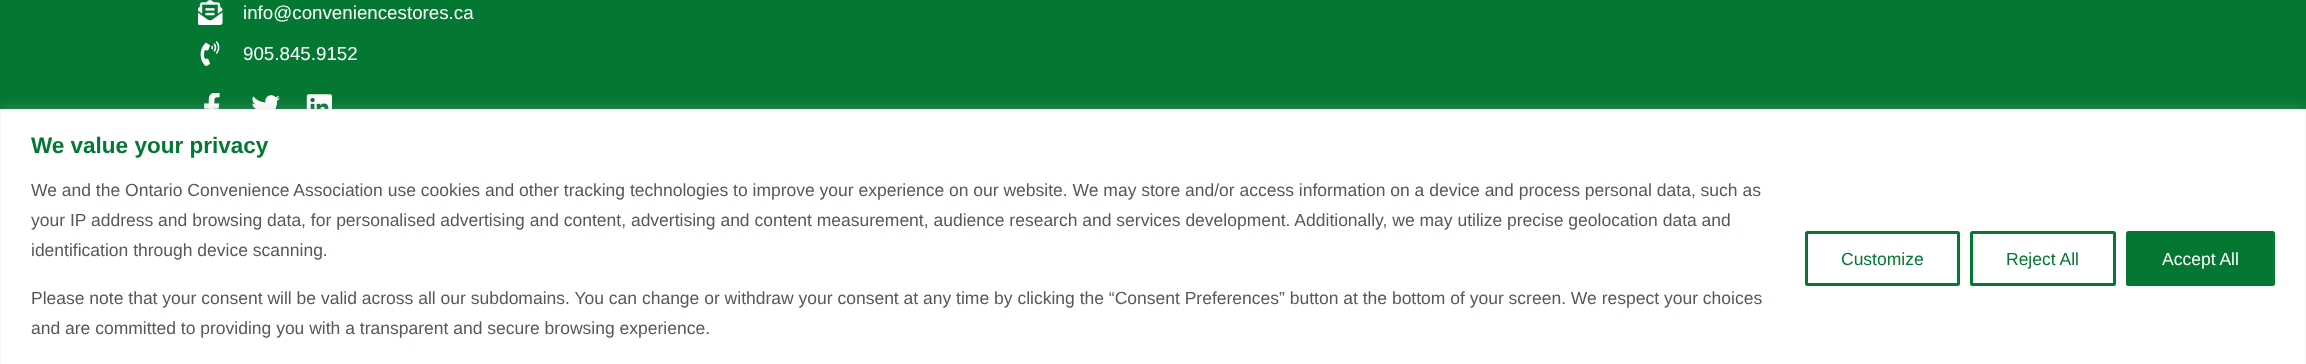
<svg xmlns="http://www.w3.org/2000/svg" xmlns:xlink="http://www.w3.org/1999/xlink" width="2306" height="364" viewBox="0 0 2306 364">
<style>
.cls-1{font:18.75px Liberation Sans;fill:#ffffff}
.cls-2{font:bold 22.5px Liberation Sans;fill:#047832}
.cls-3{font:17.5px Liberation Sans;fill:#54595f}
.cls-4{font:17.5px Liberation Sans;fill:#047832}
.cls-5{font:17.5px Liberation Sans;fill:#ffffff}
</style>
<rect width="100%" height="100%" fill="#047832"/>
<image xlink:href="image0.png" x="198" y="0" width="25" height="25"/>
<image xlink:href="image1.png" x="200" y="41" width="20" height="25"/>
<image xlink:href="image2.png" x="204" y="93" width="16" height="16"/>
<image xlink:href="image3.png" x="252" y="95" width="28" height="14"/>
<image xlink:href="image4.png" x="306" y="94" width="26" height="15"/>
<rect fill="#acabab" fill-opacity="0.3" filter="blur(6px)" x="0" y="108" width="2306" height="256"/>
<rect fill="#ffffff" stroke="#f4f4f4" x="0.5" y="109.5" width="2305" height="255"/>
<rect fill="none" stroke="#047832" stroke-width="3" x="1806.5" y="232.5" width="152" height="52" rx="1"/>
<rect fill="none" stroke="#047832" stroke-width="3" x="1971.5" y="232.5" width="143" height="52" rx="1"/>
<rect fill="#047832" stroke="#047832" stroke-width="3" x="2127.5" y="232.5" width="146" height="52" rx="1"/>
<text class="cls-1" x="243" y="19">info@conveniencestores.ca</text>
<text class="cls-1" x="243" y="60">905.845.9152</text>
<text class="cls-2" x="31" y="153">We value your privacy</text>
<text class="cls-3"><tspan x="31" y="196">We and the Ontario Convenience Association use cookies and other tracking technologies to improve your experience on our website. We may store and/or access information on a device and process personal data, such as</tspan><tspan x="31" y="226">your IP address and browsing data, for personalised advertising and content, advertising and content measurement, audience research and services development. Additionally, we may utilize precise geolocation data and</tspan><tspan x="31" y="256">identification through device scanning.</tspan></text>
<text class="cls-3"><tspan x="31" y="304">Please note that your consent will be valid across all our subdomains. You can change or withdraw your consent at any time by clicking the “Consent Preferences” button at the bottom of your screen. We respect your choices</tspan><tspan x="31" y="334">and are committed to providing you with a transparent and secure browsing experience.</tspan></text>
<text class="cls-4" x="1841" y="265">Customize</text>
<text class="cls-4" x="2006" y="265">Reject All</text>
<text class="cls-5" x="2162" y="265">Accept All</text>
</svg>
